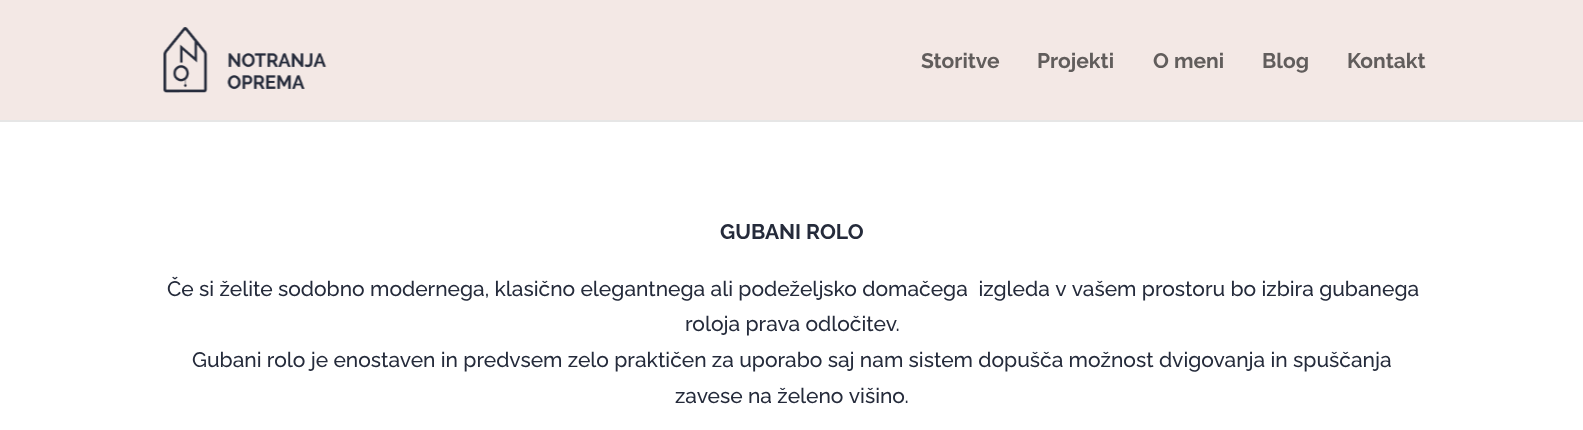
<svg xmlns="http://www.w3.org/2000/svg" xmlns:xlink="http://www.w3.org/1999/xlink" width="1583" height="430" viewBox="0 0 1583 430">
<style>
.cls-1{font:bold 21px Raleway;fill:#615d5c}
.cls-2{font:bold 21px Raleway;fill:#252b3b}
.cls-3{font:500 21px Raleway;fill:#252b3b}
</style>
<rect width="100%" height="100%" fill="#f3e8e5"/>
<rect fill="#e6e6e6" x="0" y="120" width="1583" height="2"/>
<image xlink:href="image0.png" x="163" y="27" width="164" height="66"/>
<rect fill="#ffffff" x="0" y="122" width="1583" height="308"/>
<text class="cls-1" x="921" y="68">Storitve</text>
<text class="cls-1" x="1037" y="68">Projekti</text>
<text class="cls-1" x="1153" y="68">O meni</text>
<text class="cls-1" x="1262" y="68">Blog</text>
<text class="cls-1" x="1347" y="68">Kontakt</text>
<text class="cls-2" x="720" y="239">GUBANI ROLO</text>
<text class="cls-3" xml:space="preserve" x="167" y="296">Če si želite sodobno modernega, klasično elegantnega ali podeželjsko domačega  izgleda v vašem prostoru bo izbira gubanega</text>
<text class="cls-3" x="685" y="331">roloja prava odločitev.</text>
<text class="cls-3" x="192" y="367">Gubani rolo je enostaven in predvsem zelo praktičen za uporabo saj nam sistem dopušča možnost dvigovanja in spuščanja</text>
<text class="cls-3" x="675" y="403">zavese na želeno višino.</text>
</svg>
